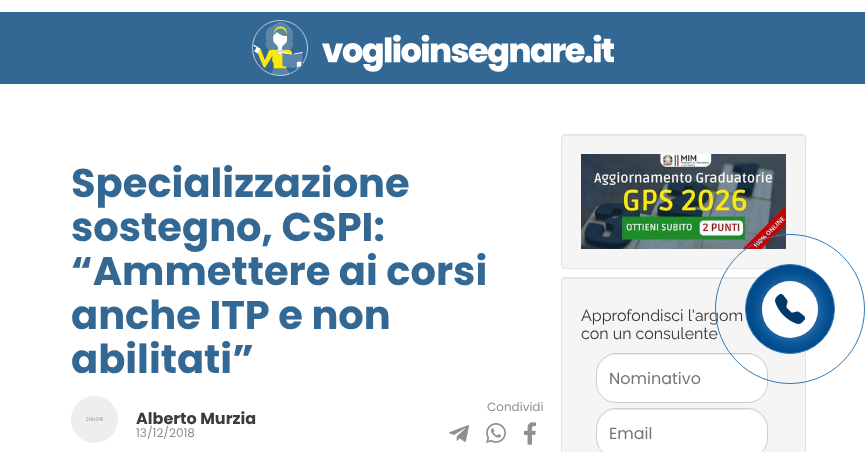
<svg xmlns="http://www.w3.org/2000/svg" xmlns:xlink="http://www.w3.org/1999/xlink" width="865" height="452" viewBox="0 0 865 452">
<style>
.cls-1{font:bold 40px Poppins;fill:#336894}
.cls-2{font:12px Poppins;fill:#8e8f8f}
.cls-3{font:bold 16px Poppins;fill:#3d3d3d}
.cls-4{font:16px Raleway;fill:#333333}
.cls-5{font:16px Poppins;fill:#757575}
</style>
<rect width="100%" height="100%" fill="#ffffff"/>
<rect fill="#336894" x="0" y="12" width="865" height="72"/>
<image xlink:href="image0.png" x="252" y="20" width="362" height="56"/>
<image xlink:href="image1.png" x="71" y="396" width="47" height="47"/>
<image xlink:href="image2.png" x="449" y="425" width="20" height="17"/>
<image xlink:href="image3.png" x="486" y="423" width="20" height="20"/>
<image xlink:href="image4.png" x="524" y="422" width="12" height="23"/>
<rect fill="#f5f5f5" x="561" y="134" width="245" height="135" rx="4"/>
<path fill="#e9e9e9" d="M565 136H803L805 137V139C805 137 804 135 802 135H565C563 135 562 137 562 139C562 137 563 136 565 136Z"/>
<rect fill="none" stroke="#e3e3e3" x="561.5" y="134.5" width="244" height="134" rx="3.5"/>
<image xlink:href="image5.png" x="581" y="154" width="205" height="95"/>
<rect fill="#f5f5f5" x="561" y="277" width="245" height="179" rx="4"/>
<path fill="#e9e9e9" d="M565 279H803L805 280V282C805 280 804 278 802 278H565C563 278 562 280 562 282C562 280 563 279 565 279Z"/>
<rect fill="none" stroke="#e3e3e3" x="561.5" y="277.5" width="244" height="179" rx="3.5"/>
<rect fill="#ffffff" x="596" y="353" width="172" height="50" rx="20"/>
<path fill="#ebebeb" d="M616 355H748C758 355 767 364 767 374C767 350 742 354 726 354H638C622 354 597 350 597 374C597 364 606 355 616 355Z"/>
<rect fill="none" stroke="#cccccc" x="596.5" y="353.5" width="171" height="49" rx="19.5"/>
<rect fill="#ffffff" x="596" y="408" width="172" height="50" rx="20"/>
<path fill="#ebebeb" d="M616 410H748C758 410 767 419 767 429C767 405 742 409 726 409H638C622 409 597 405 597 429C597 419 606 410 616 410Z"/>
<rect fill="none" stroke="#cccccc" x="596.5" y="408.5" width="171" height="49" rx="19.5"/>
<text class="cls-1"><tspan x="71" y="197">Specializzazione</tspan><tspan x="71" y="241">sostegno, CSPI:</tspan><tspan x="71" y="285">“Ammettere ai corsi</tspan><tspan x="71" y="329">anche ITP e non</tspan><tspan x="71" y="373">abilitati”</tspan></text>
<text class="cls-2" x="487" y="411">Condividi</text>
<text class="cls-3" x="136" y="424">Alberto Murzia</text>
<text class="cls-2" x="136" y="437">13/12/2018</text>
<text class="cls-4"><tspan x="581" y="321">Approfondisci l'argom</tspan><tspan x="581" y="339">con un consulente</tspan></text>
<text class="cls-5" x="609" y="384">Nominativo</text>
<text class="cls-5" x="609" y="439">Email</text>
<circle fill="none" stroke="#337ab7" cx="790" cy="309" r="74.5"/>
<circle fill="#004b8c" stroke="#337ab7" cx="790" cy="309" r="44.5"/>
<rect fill="#337ab7" filter="blur(7px)" x="761" y="280" width="60" height="61" rx="30"/>
<rect fill="#ffffff" x="762" y="281" width="56" height="57" rx="28"/>
<image xlink:href="image6.png" x="775" y="294" width="30" height="30"/>
</svg>
